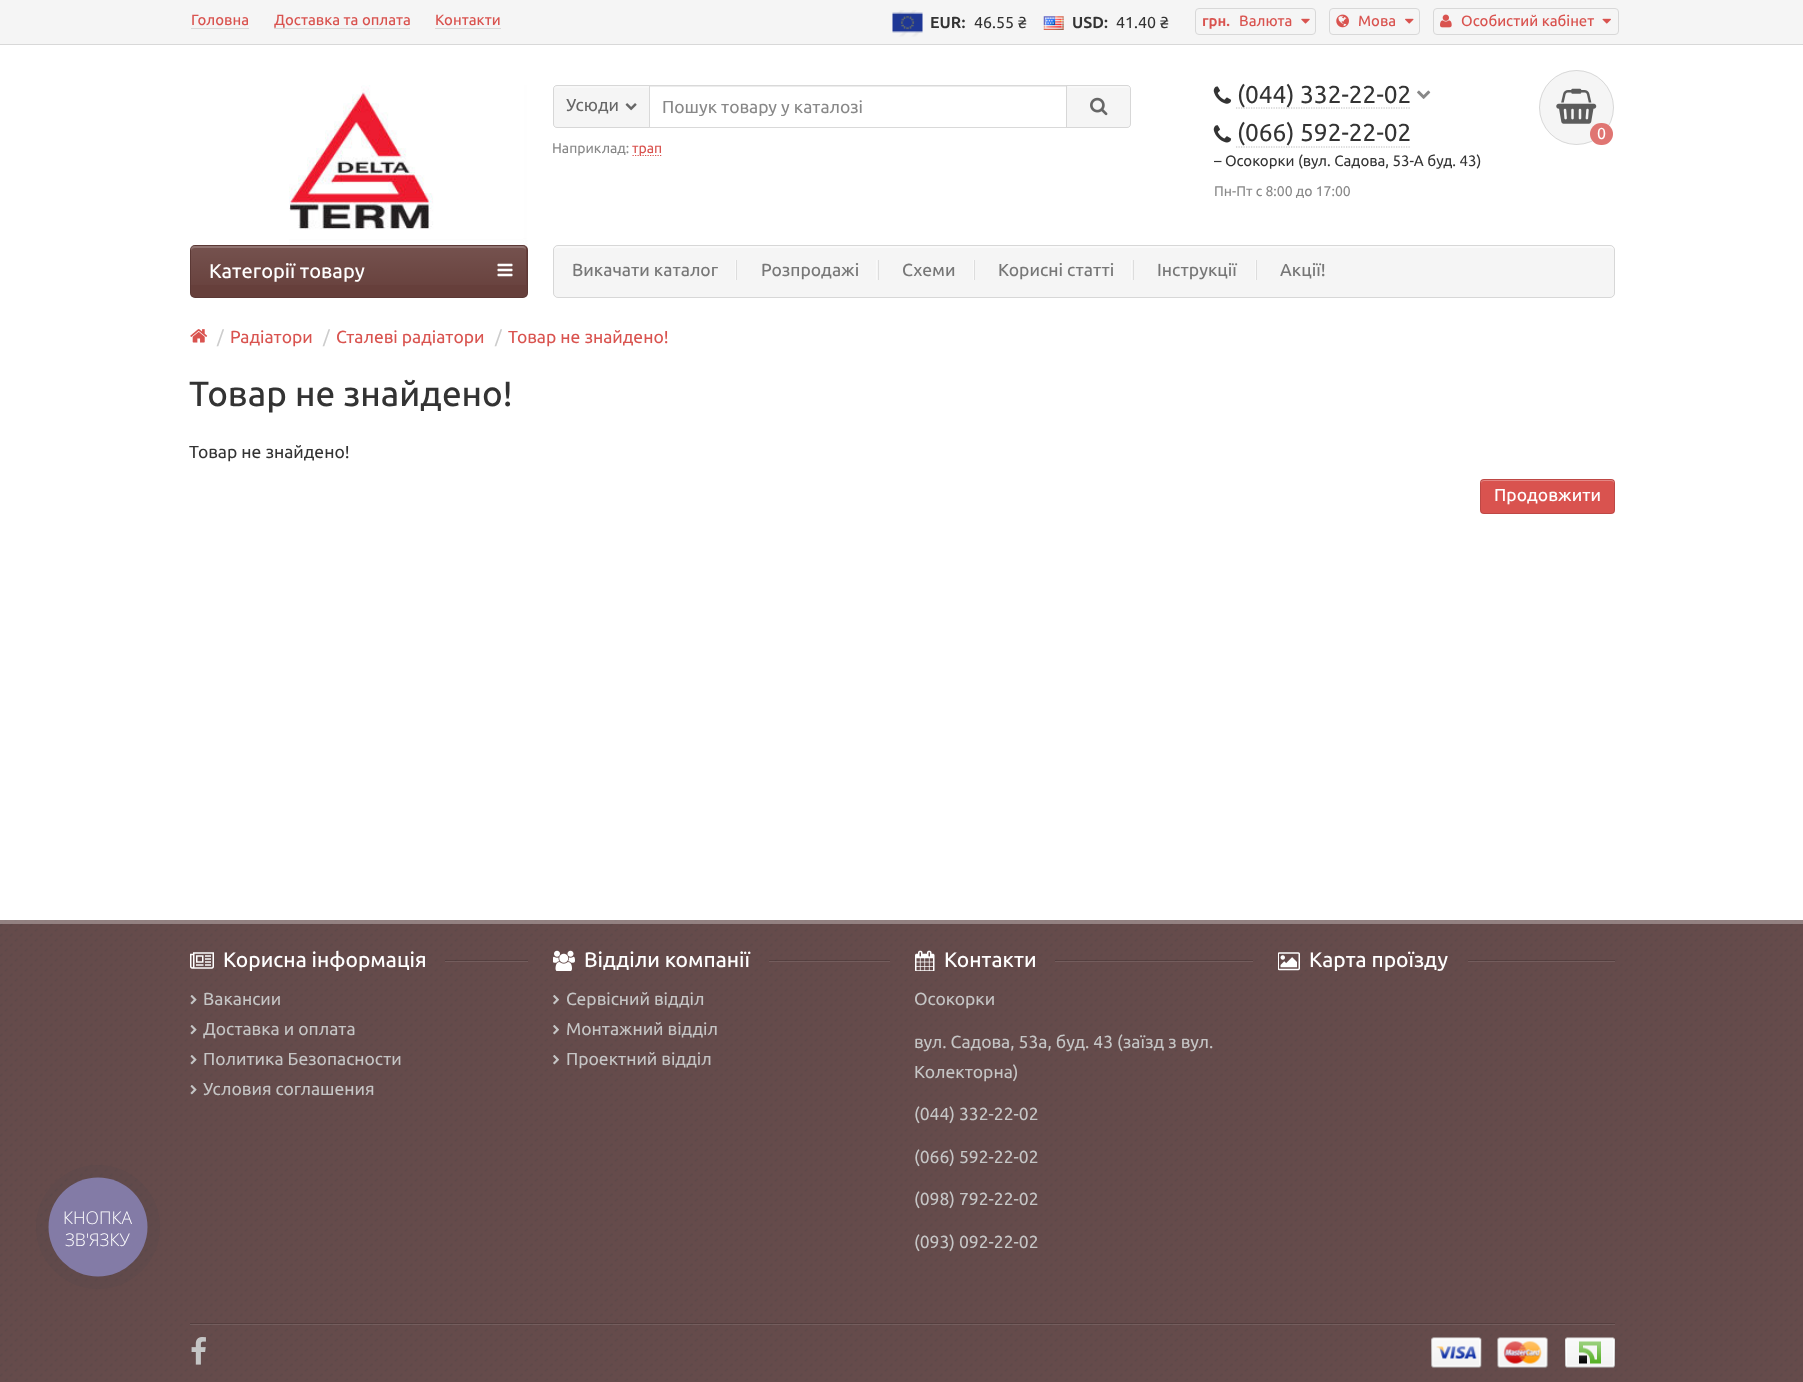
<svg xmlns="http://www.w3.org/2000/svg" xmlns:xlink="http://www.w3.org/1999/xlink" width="1803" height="1382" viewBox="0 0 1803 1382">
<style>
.cls-1{font:500 14.9px Ubuntu;fill:#d9534f}
.cls-2{font:bold 16px Ubuntu;fill:#333333}
.cls-3{font:16px Ubuntu;fill:#333333}
.cls-4{font:bold 14.9px Ubuntu;fill:#d9534f}
.cls-5{font:17.5px Ubuntu;fill:#666666}
.cls-6{font:17.5px Ubuntu;fill:#888888}
.cls-7{font:14px Ubuntu;fill:#888888}
.cls-8{font:14px Ubuntu;fill:#d9534f}
.cls-9{font:24.5px Ubuntu;fill:#333333}
.cls-10{font:15px Ubuntu;fill:#333333}
.cls-11{font:16px Ubuntu;fill:#ffffff}
.cls-12{font:500 20px Ubuntu;fill:#ffffff}
.cls-13{font:500 17.5px Ubuntu;fill:#777777}
.cls-14{font:17.5px Ubuntu;fill:#cccccc}
.cls-15{font:17.5px Ubuntu;fill:#d9534f}
.cls-16{font:500 35px Ubuntu;fill:#333333}
.cls-17{font:17.5px Ubuntu;fill:#333333}
.cls-18{font:500 17.5px Ubuntu;fill:#ffffff}
.cls-19{font:300 17.5px Open Sans;fill:#ffffff}
.cls-20{font:500 21px Ubuntu;fill:#ffffff}
.cls-21{font:17.5px Ubuntu;fill:#c5c5c5}
</style>
<defs>
<linearGradient id="g1" gradientUnits="userSpaceOnUse" x1="359" y1="246" x2="359" y2="296"><stop offset="0" stop-color="#ffffff" stop-opacity="0.1"/><stop offset="1" stop-color="#ffffff" stop-opacity="0"/></linearGradient>
<clipPath id="clip1"><rect x="663" y="96" width="391" height="20"/></clipPath>
</defs>
<rect width="100%" height="100%" fill="#ffffff"/>
<rect fill="#f5f5f5" x="0" y="0" width="1803" height="44"/>
<rect fill="#d8d8d8" x="0" y="44" width="1803" height="1"/>
<rect fill="#d8d8d8" x="191" y="28" width="58" height="1"/>
<rect fill="#d8d8d8" x="274" y="28" width="136" height="1"/>
<rect fill="#d8d8d8" x="435" y="28" width="66" height="1"/>
<image xlink:href="image0.png" x="892" y="10" width="31" height="27"/>
<image xlink:href="image1.png" x="1043" y="16" width="21" height="14"/>
<rect fill="none" stroke="#d8d8d8" x="1195.5" y="8.5" width="120" height="26" rx="3.5"/>
<image xlink:href="image2.png" x="1301" y="18" width="9" height="6"/>
<rect fill="none" stroke="#d8d8d8" x="1329.5" y="8.5" width="90" height="26" rx="3.5"/>
<image xlink:href="image3.png" x="1336" y="14" width="13" height="14"/>
<image xlink:href="image4.png" x="1405" y="18" width="9" height="6"/>
<rect fill="none" stroke="#d8d8d8" x="1433.5" y="8.5" width="185" height="26" rx="3.5"/>
<image xlink:href="image5.png" x="1440" y="14" width="12" height="14"/>
<image xlink:href="image6.png" x="1602" y="18" width="9" height="6"/>
<image xlink:href="image7.png" x="289" y="85" width="239" height="160"/>
<path fill="#f5f5f5" d="M557 85H651V128H557C555 128 553 126 553 124V89C553 87 555 85 557 85Z"/>
<path fill="#f8f8f8" d="M556 88H650V86H556C555 86 554 87 554 88V90C554 89 555 88 556 88Z"/>
<path fill="none" stroke="#000000" stroke-opacity="0.12" d="M557 85.5H650.5V127.5H557C555 127.5 553.5 126 553.5 124V89C553.5 87 555 85.5 557 85.5Z"/>
<image xlink:href="image8.png" x="625" y="103" width="12" height="8"/>
<rect fill="#ffffff" x="650" y="87" width="1" height="40"/>
<rect fill="#ececec" x="650" y="86" width="416" height="1"/>
<rect fill="none" stroke="#d9d9d9" x="649.5" y="85.5" width="418" height="42"/>
<path fill="#f5f5f5" d="M1066 85H1127C1129 85 1131 87 1131 89V124C1131 126 1129 128 1127 128H1066Z"/>
<path fill="#f8f8f8" d="M1068 88H1128C1129 88 1130 89 1130 90V88C1130 87 1129 86 1128 86H1068Z"/>
<path fill="none" stroke="#000000" stroke-opacity="0.12" d="M1066.5 85.5H1127C1129 85.5 1130.5 87 1130.5 89V124C1130.5 126 1129 127.5 1127 127.5H1066.5Z"/>
<image xlink:href="image9.png" x="1090" y="97" width="18" height="19"/>
<path fill="none" stroke="#d9534f" stroke-width="1.2" stroke-dasharray="1.25 1.25" d="M632.5 155.5H662.5"/>
<image xlink:href="image10.png" x="1213" y="86" width="19" height="18"/>
<path fill="none" stroke="#bbbbbb" stroke-width="1.2" stroke-dasharray="1.25 1.25" d="M1236 108H1411"/>
<image xlink:href="image11.png" x="1417" y="90" width="14" height="9"/>
<image xlink:href="image12.png" x="1213" y="125" width="19" height="18"/>
<path fill="none" stroke="#bbbbbb" stroke-width="1.2" stroke-dasharray="1.25 1.25" d="M1236 147H1411"/>
<circle fill="#f5f5f5" cx="1576.5" cy="107.5" r="37.5"/>
<circle fill="none" stroke="#000000" stroke-opacity="0.12" cx="1576.5" cy="107.5" r="37"/>
<image xlink:href="image13.png" x="1556" y="88" width="41" height="36"/>
<rect fill="#e07572" x="1590" y="123" width="23" height="22" rx="11"/>
<rect fill="#663f3b" x="190" y="245" width="338" height="53" rx="5"/>
<path fill="#856562" d="M195 248H522C525 248 526 249 526 251C526 248 525 246 522 246H195C192 246 191 248 191 251C191 249 193 248 195 248Z"/>
<rect fill="none" stroke="#000000" stroke-opacity="0.1" x="190.5" y="245.5" width="337" height="52" rx="4.5"/>
<rect fill="url(#g1)" x="191" y="246" width="335" height="39"/>
<image xlink:href="image14.png" x="497" y="263" width="16" height="14"/>
<rect fill="#f5f5f5" x="553" y="245" width="1062" height="53" rx="5"/>
<path fill="#fafafa" d="M558 248H1610C1612 248 1614 249 1614 251C1614 248 1613 246 1610 246H558C555 246 554 248 554 251C554 249 555 248 558 248Z"/>
<rect fill="none" stroke="#000000" stroke-opacity="0.12" x="553.5" y="245.5" width="1061" height="52" rx="4.5"/>
<rect fill="#fafafa" x="735" y="260" width="1" height="20"/>
<rect fill="#dddddd" x="736" y="260" width="1" height="20"/>
<rect fill="#fafafa" x="876" y="260" width="1" height="20"/>
<rect fill="#dddddd" x="878" y="260" width="1" height="20"/>
<rect fill="#fafafa" x="973" y="260" width="1" height="20"/>
<rect fill="#dddddd" x="974" y="260" width="1" height="20"/>
<rect fill="#fafafa" x="1131" y="260" width="1" height="20"/>
<rect fill="#dddddd" x="1133" y="260" width="1" height="20"/>
<rect fill="#fafafa" x="1255" y="260" width="1" height="20"/>
<rect fill="#dddddd" x="1256" y="260" width="1" height="20"/>
<image xlink:href="image15.png" x="190" y="329" width="18" height="14"/>
<rect fill="#d9534f" x="1480" y="479" width="135" height="35" rx="4"/>
<path fill="#e48784" d="M1484 481H1611C1613 481 1614 482 1614 484V482C1614 481 1613 480 1612 480H1484C1482 480 1481 481 1481 482V484C1481 482 1482 481 1484 481Z"/>
<rect fill="none" stroke="#000000" stroke-opacity="0.12" x="1480.5" y="479.5" width="134" height="34" rx="3.5"/>
<rect fill="#654b4b" x="0" y="920" width="1803" height="462"/>
<image xlink:href="image16.png" x="0" y="920" width="1803" height="461"/>
<circle fill="#2a405d" fill-opacity="0.06" cx="98" cy="1227" r="62"/>
<circle fill="#837ba6" cx="98" cy="1227" r="49.5"/>
<rect fill="#ffffff" fill-opacity="0.3" x="0" y="920" width="1803" height="4"/>
<image xlink:href="image17.png" x="190" y="952" width="24" height="17"/>
<rect fill="#000000" fill-opacity="0.15" x="445" y="960" width="83" height="1"/>
<rect fill="#ffffff" fill-opacity="0.1" x="445" y="961" width="83" height="1"/>
<image xlink:href="image18.png" x="190" y="995" width="7" height="10"/>
<image xlink:href="image18.png" x="190" y="1025" width="7" height="10"/>
<image xlink:href="image18.png" x="190" y="1055" width="7" height="10"/>
<image xlink:href="image18.png" x="190" y="1085" width="7" height="10"/>
<image xlink:href="image19.png" x="553" y="950" width="22" height="21"/>
<rect fill="#000000" fill-opacity="0.15" x="769" y="960" width="121" height="1"/>
<rect fill="#ffffff" fill-opacity="0.1" x="769" y="961" width="121" height="1"/>
<image xlink:href="image20.png" x="553" y="995" width="6" height="10"/>
<image xlink:href="image20.png" x="553" y="1025" width="6" height="10"/>
<image xlink:href="image20.png" x="553" y="1055" width="6" height="10"/>
<image xlink:href="image21.png" x="915" y="950" width="20" height="21"/>
<rect fill="#000000" fill-opacity="0.15" x="1055" y="960" width="198" height="1"/>
<rect fill="#ffffff" fill-opacity="0.1" x="1055" y="961" width="198" height="1"/>
<image xlink:href="image22.png" x="1278" y="952" width="22" height="19"/>
<rect fill="#000000" fill-opacity="0.15" x="1468" y="960" width="147" height="1"/>
<rect fill="#ffffff" fill-opacity="0.1" x="1468" y="961" width="147" height="1"/>
<rect fill="#000000" fill-opacity="0.15" x="190" y="1323" width="1425" height="1"/>
<rect fill="#ffffff" fill-opacity="0.1" x="190" y="1324" width="1425" height="1"/>
<image xlink:href="image23.png" x="191" y="1337" width="15" height="28"/>
<image xlink:href="image24.png" x="1431" y="1337" width="51" height="31"/>
<image xlink:href="image25.png" x="1497" y="1337" width="51" height="31"/>
<image xlink:href="image26.png" x="1565" y="1337" width="50" height="31"/>
<text class="cls-1" x="191" y="25">Головна</text>
<text class="cls-1" x="274" y="25">Доставка та оплата</text>
<text class="cls-1" x="435" y="25">Контакти</text>
<text class="cls-2" x="930" y="28">EUR:</text>
<text class="cls-3" x="974" y="28">46.55 ₴</text>
<text class="cls-2" x="1072" y="28">USD:</text>
<text class="cls-3" x="1116" y="28">41.40 ₴</text>
<text class="cls-4" x="1202" y="26">грн.</text>
<text class="cls-1" x="1239" y="26">Валюта</text>
<text class="cls-1" x="1358" y="26">Мова</text>
<text class="cls-1" x="1461" y="26">Особистий кабінет</text>
<text class="cls-5" x="566" y="111">Усюди</text>
<g clip-path="url(#clip1)">
<text class="cls-6" x="662" y="113">Пошук товару у каталозі</text>
</g>
<text class="cls-7" x="552" y="153">Наприклад:</text>
<text class="cls-8" x="632" y="153">трап</text>
<text class="cls-9"><tspan x="1237" y="103">(044) 332-22-02</tspan><tspan x="1237" y="141">(066) 592-22-02</tspan></text>
<text class="cls-10" x="1214" y="166">– Осокорки (вул. Садова, 53-А буд. 43)</text>
<text class="cls-7" x="1214" y="196">Пн-Пт с 8:00 до 17:00</text>
<text class="cls-11" x="1597" y="139">0</text>
<text class="cls-12" x="209" y="278">Категорії товару</text>
<text class="cls-13" x="572" y="276">Викачати каталог</text>
<text class="cls-13" x="761" y="276">Розпродажі</text>
<text class="cls-13" x="902" y="276">Схеми</text>
<text class="cls-13" x="998" y="276">Корисні статті</text>
<text class="cls-13" x="1157" y="276">Інструкції</text>
<text class="cls-13" x="1280" y="276">Акції!</text>
<text class="cls-14" x="217" y="343">/</text>
<text class="cls-15" x="230" y="343">Радіатори</text>
<text class="cls-14" x="323" y="343">/</text>
<text class="cls-15" x="336" y="343">Сталеві радіатори</text>
<text class="cls-14" x="495" y="343">/</text>
<text class="cls-15" x="508" y="343">Товар не знайдено!</text>
<text class="cls-16" x="189" y="406">Товар не знайдено!</text>
<text class="cls-17" x="189" y="458">Товар не знайдено!</text>
<text class="cls-18" x="1494" y="501">Продовжити</text>
<text class="cls-19" x="63" y="1224">КНОПКА</text>
<text class="cls-19" x="65" y="1246">ЗВ'ЯЗКУ</text>
<text class="cls-20" x="223" y="967">Корисна інформація</text>
<text class="cls-21"><tspan x="203" y="1005">Вакансии</tspan><tspan x="203" y="1035">Доставка и оплата</tspan><tspan x="203" y="1065">Политика Безопасности</tspan><tspan x="203" y="1095">Условия соглашения</tspan></text>
<text class="cls-20" x="584" y="967">Відділи компанії</text>
<text class="cls-21"><tspan x="566" y="1005">Сервісний відділ</tspan><tspan x="566" y="1035">Монтажний відділ</tspan><tspan x="566" y="1065">Проектний відділ</tspan></text>
<text class="cls-20" x="944" y="967">Контакти</text>
<text class="cls-21" x="914" y="1005">Осокорки</text>
<text class="cls-21"><tspan x="914" y="1048">вул. Садова, 53а, буд. 43 (заїзд з вул.</tspan><tspan x="914" y="1078">Колекторна)</tspan></text>
<text class="cls-21" x="914" y="1120">(044) 332-22-02</text>
<text class="cls-21" x="914" y="1163">(066) 592-22-02</text>
<text class="cls-21" x="914" y="1205">(098) 792-22-02</text>
<text class="cls-21" x="914" y="1248">(093) 092-22-02</text>
<text class="cls-20" x="1309" y="967">Карта проїзду</text>
</svg>
